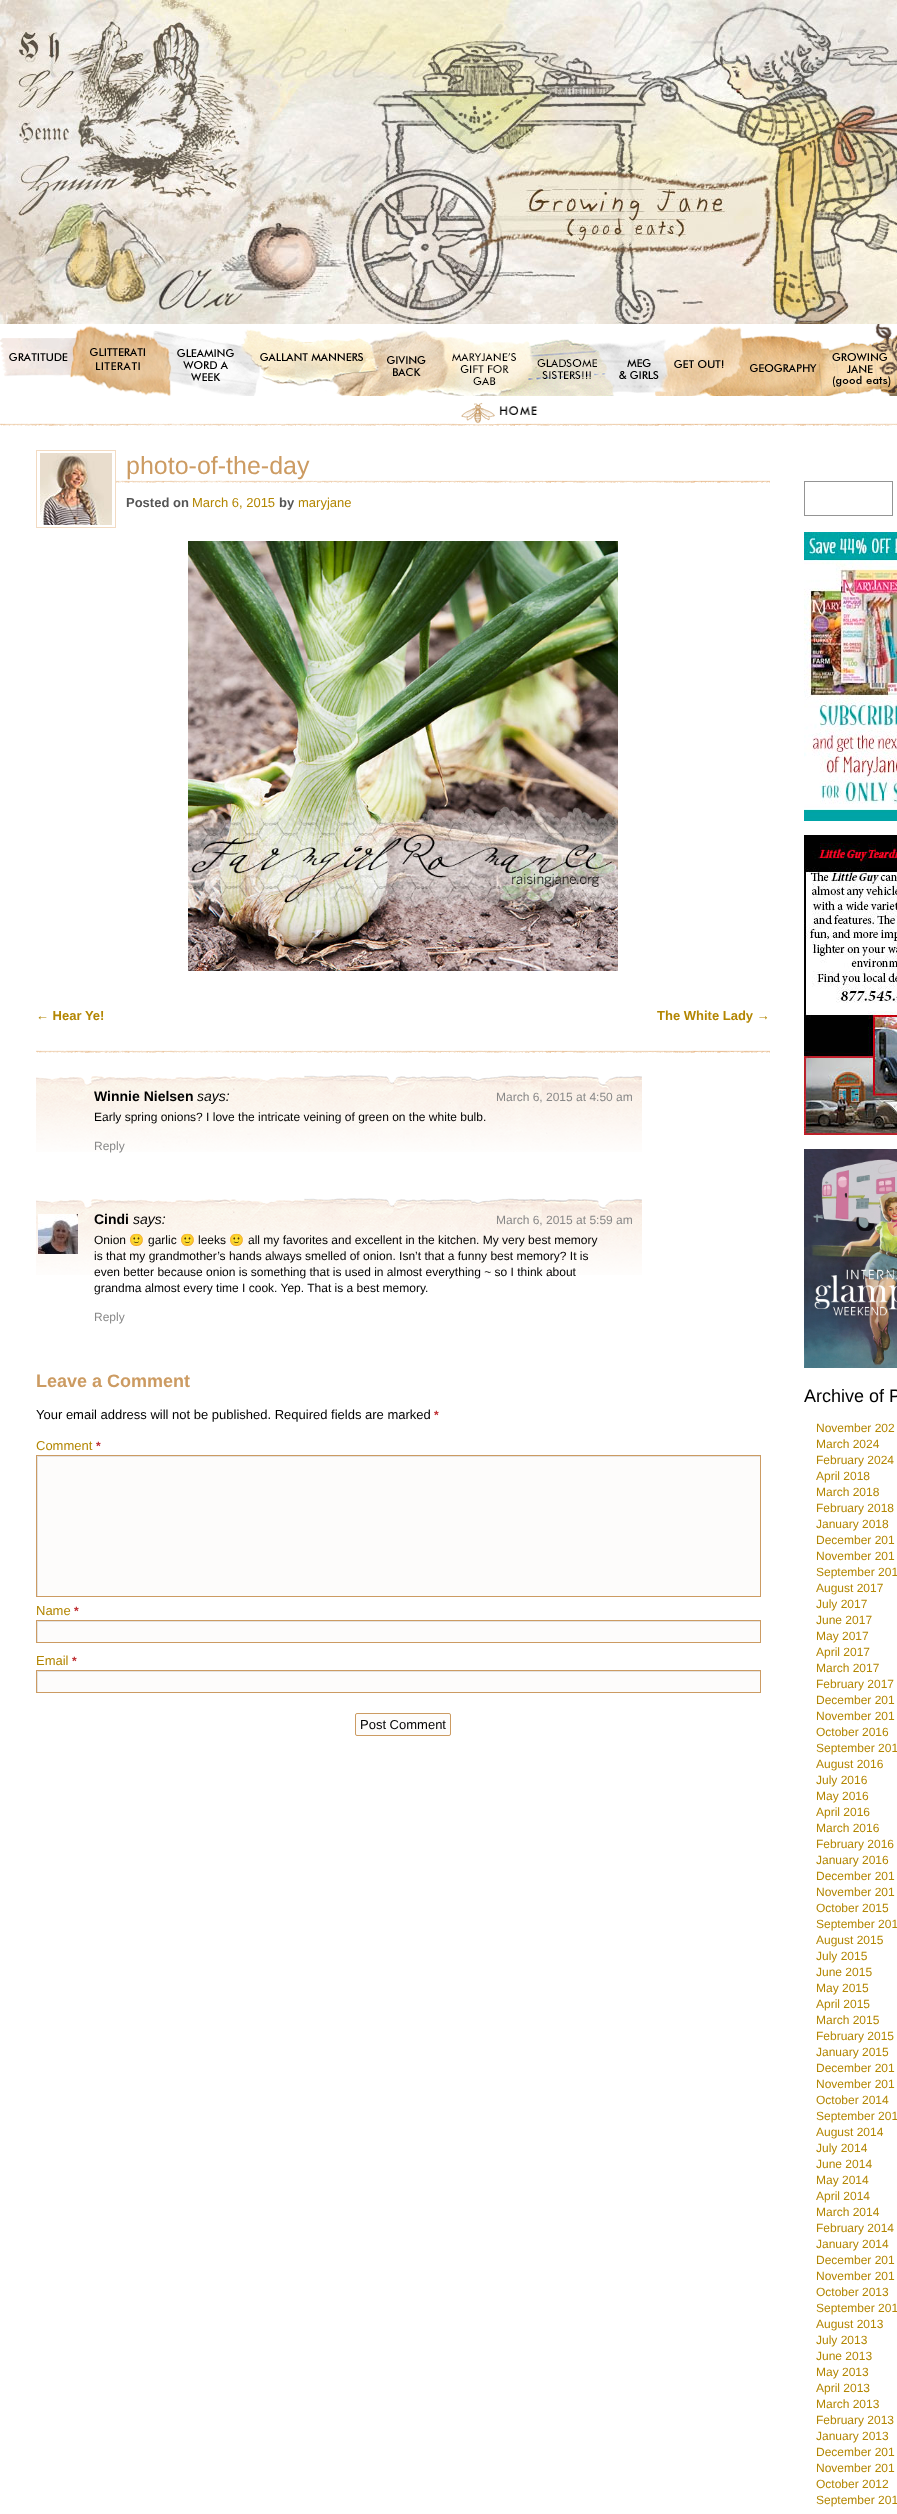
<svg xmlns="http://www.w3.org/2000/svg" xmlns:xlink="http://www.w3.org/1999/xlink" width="897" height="2514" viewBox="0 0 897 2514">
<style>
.cls-1{font:25px Liberation Sans;fill:#cc9b62}
.cls-2{font:bold 13px Liberation Sans;fill:#555555}
.cls-3{font:13px Liberation Sans;fill:#b38602}
.cls-4{font:bold 13px Liberation Sans;fill:#b38602}
.cls-5{font:bold 14px Liberation Sans;fill:#000000}
.cls-6{font:italic 14px Liberation Sans;fill:#000000}
.cls-7{font:12px Liberation Sans;fill:#888888}
.cls-8{font:12px Liberation Sans;fill:#000000}
.cls-9{font:12px Noto Color Emoji;fill:#000000}
.cls-10{font:bold 18px Liberation Sans;fill:#cc9b62}
.cls-11{font:13px Liberation Sans;fill:#000000}
.cls-12{font:bold 12px Liberation Sans;fill:#bf2f34}
.cls-13{font:18px Liberation Sans;fill:#000000}
.cls-14{font:12px Liberation Sans;fill:#b38602}
</style>
<defs>
<clipPath id="clip1"><rect x="37" y="1456" width="723" height="140"/></clipPath>
<clipPath id="clip2"><rect x="37" y="1621" width="723" height="21"/></clipPath>
<clipPath id="clip3"><rect x="37" y="1671" width="723" height="21"/></clipPath>
</defs>
<rect width="100%" height="100%" fill="#ffffff"/>
<image xlink:href="image0.png" x="0" y="0" width="897" height="324"/>
<image xlink:href="image1.png" x="0" y="423" width="897" height="3"/>
<image xlink:href="image2.png" x="0" y="325" width="897" height="71"/>
<image xlink:href="image3.png" x="9" y="353" width="59" height="8"/>
<image xlink:href="image4.png" x="90" y="348" width="55" height="22"/>
<image xlink:href="image5.png" x="177" y="349" width="57" height="32"/>
<image xlink:href="image6.png" x="260" y="353" width="103" height="8"/>
<image xlink:href="image7.png" x="387" y="356" width="39" height="20"/>
<image xlink:href="image8.png" x="443" y="337" width="88" height="59"/>
<image xlink:href="image9.png" x="531" y="339" width="80" height="40"/>
<image xlink:href="image10.png" x="619" y="359" width="40" height="20"/>
<image xlink:href="image11.png" x="674" y="360" width="50" height="8"/>
<image xlink:href="image12.png" x="750" y="364" width="67" height="8"/>
<image xlink:href="image13.png" x="832" y="324" width="65" height="70"/>
<image xlink:href="image14.png" x="457" y="402" width="40" height="22"/>
<image xlink:href="image15.png" x="499" y="406" width="39" height="9"/>
<rect fill="none" stroke="#f2dac1" x="36.5" y="450.5" width="79" height="77"/>
<image xlink:href="image16.png" x="40" y="453" width="72" height="72"/>
<image xlink:href="image17.png" x="116" y="480" width="654" height="3"/>
<image xlink:href="image18.png" x="188" y="541" width="430" height="430"/>
<image xlink:href="image19.png" x="36" y="1050" width="734" height="3"/>
<image xlink:href="image20.png" x="36" y="1075" width="606" height="77"/>
<image xlink:href="image20.png" x="36" y="1198" width="606" height="77"/>
<image xlink:href="image21.png" x="38" y="1214" width="40" height="40"/>
<rect fill="#fdfcfb" x="38" y="1457" width="722" height="139"/>
<g clip-path="url(#clip1)">
<path fill="#e4e3e2" fill-rule="evenodd" d="M-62 1357H859V1695H-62ZM38 1457H761V1597H38Z"/>
</g>
<rect fill="none" stroke="#cc9b62" x="36.5" y="1455.5" width="724" height="141"/>
<rect fill="#fdfcfb" x="38" y="1622" width="722" height="20"/>
<g clip-path="url(#clip2)">
<path fill="#e4e3e2" fill-rule="evenodd" d="M-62 1522H859V1741H-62ZM38 1622H761V1643H38Z"/>
</g>
<rect fill="none" stroke="#cc9b62" x="36.5" y="1620.5" width="724" height="22"/>
<rect fill="#fdfcfb" x="38" y="1672" width="722" height="20"/>
<g clip-path="url(#clip3)">
<path fill="#e4e3e2" fill-rule="evenodd" d="M-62 1572H859V1791H-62ZM38 1672H761V1693H38Z"/>
</g>
<rect fill="none" stroke="#cc9b62" x="36.5" y="1670.5" width="724" height="22"/>
<rect fill="#fdfcfb" stroke="#cc9b62" x="355.5" y="1713.5" width="95" height="22" rx="1.5"/>
<rect fill="none" stroke="#949494" x="804.5" y="481.5" width="88" height="34"/>
<image xlink:href="image22.png" x="804" y="532" width="93" height="289"/>
<image xlink:href="image23.png" x="804" y="835" width="93" height="300"/>
<image xlink:href="image24.png" x="804" y="1149" width="93" height="219"/>
<text class="cls-1" x="126" y="474">photo-of-the-day</text>
<text class="cls-2" x="126" y="507">Posted on</text>
<text class="cls-3" x="192" y="507">March 6, 2015</text>
<text class="cls-2" x="279" y="507">by</text>
<text class="cls-3" x="298" y="507">maryjane</text>
<text class="cls-4" x="36" y="1020">← Hear Ye!</text>
<text class="cls-4" x="657" y="1020">The White Lady →</text>
<text class="cls-5" x="94" y="1101">Winnie Nielsen</text>
<text class="cls-6" x="197" y="1101">says:</text>
<text class="cls-7" x="496" y="1101">March 6, 2015 at 4:50 am</text>
<text class="cls-8" x="94" y="1121">Early spring onions? I love the intricate veining of green on the white bulb.</text>
<text class="cls-7" x="94" y="1150">Reply</text>
<text class="cls-5" x="94" y="1224">Cindi</text>
<text class="cls-6" x="133" y="1224">says:</text>
<text class="cls-7" x="496" y="1224">March 6, 2015 at 5:59 am</text>
<text class="cls-8" x="94" y="1244">Onion</text>
<text class="cls-9" x="129" y="1244">🙂</text>
<text class="cls-8" x="148" y="1244">garlic</text>
<text class="cls-9" x="180" y="1244">🙂</text>
<text class="cls-8" x="198" y="1244">leeks</text>
<text class="cls-9" x="229" y="1244">🙂</text>
<text class="cls-8" x="248" y="1244">all my favorites and excellent in the kitchen. My very best memory</text>
<text class="cls-8"><tspan x="94" y="1260">is that my grandmother’s hands always smelled of onion. Isn’t that a funny best memory? It is</tspan><tspan x="94" y="1276">even better because onion is something that is used in almost everything ~ so I think about</tspan><tspan x="94" y="1292">grandma almost every time I cook. Yep. That is a best memory.</tspan></text>
<text class="cls-7" x="94" y="1321">Reply</text>
<text class="cls-10" x="36" y="1387">Leave a Comment</text>
<text class="cls-11" x="36" y="1419">Your email address will not be published. Required fields are marked</text>
<text class="cls-12" x="434" y="1419">*</text>
<text class="cls-3" x="36" y="1450">Comment</text>
<text class="cls-12" x="96" y="1450">*</text>
<text class="cls-3" x="36" y="1615">Name</text>
<text class="cls-12" x="74" y="1615">*</text>
<text class="cls-3" x="36" y="1665">Email</text>
<text class="cls-12" x="72" y="1665">*</text>
<text class="cls-11" x="360" y="1729">Post Comment</text>
<text class="cls-13" x="804" y="1402">Archive of P</text>
<text class="cls-14"><tspan x="816" y="1432">November 202</tspan><tspan x="816" y="1448">March 2024</tspan><tspan x="816" y="1464">February 2024</tspan><tspan x="816" y="1480">April 2018</tspan><tspan x="816" y="1496">March 2018</tspan><tspan x="816" y="1512">February 2018</tspan><tspan x="816" y="1528">January 2018</tspan><tspan x="816" y="1544">December 201</tspan><tspan x="816" y="1560">November 201</tspan><tspan x="816" y="1576">September 201</tspan><tspan x="816" y="1592">August 2017</tspan><tspan x="816" y="1608">July 2017</tspan><tspan x="816" y="1624">June 2017</tspan><tspan x="816" y="1640">May 2017</tspan><tspan x="816" y="1656">April 2017</tspan><tspan x="816" y="1672">March 2017</tspan><tspan x="816" y="1688">February 2017</tspan><tspan x="816" y="1704">December 201</tspan><tspan x="816" y="1720">November 201</tspan><tspan x="816" y="1736">October 2016</tspan><tspan x="816" y="1752">September 201</tspan><tspan x="816" y="1768">August 2016</tspan><tspan x="816" y="1784">July 2016</tspan><tspan x="816" y="1800">May 2016</tspan><tspan x="816" y="1816">April 2016</tspan><tspan x="816" y="1832">March 2016</tspan><tspan x="816" y="1848">February 2016</tspan><tspan x="816" y="1864">January 2016</tspan><tspan x="816" y="1880">December 201</tspan><tspan x="816" y="1896">November 201</tspan><tspan x="816" y="1912">October 2015</tspan><tspan x="816" y="1928">September 201</tspan><tspan x="816" y="1944">August 2015</tspan><tspan x="816" y="1960">July 2015</tspan><tspan x="816" y="1976">June 2015</tspan><tspan x="816" y="1992">May 2015</tspan><tspan x="816" y="2008">April 2015</tspan><tspan x="816" y="2024">March 2015</tspan><tspan x="816" y="2040">February 2015</tspan><tspan x="816" y="2056">January 2015</tspan><tspan x="816" y="2072">December 201</tspan><tspan x="816" y="2088">November 201</tspan><tspan x="816" y="2104">October 2014</tspan><tspan x="816" y="2120">September 201</tspan><tspan x="816" y="2136">August 2014</tspan><tspan x="816" y="2152">July 2014</tspan><tspan x="816" y="2168">June 2014</tspan><tspan x="816" y="2184">May 2014</tspan><tspan x="816" y="2200">April 2014</tspan><tspan x="816" y="2216">March 2014</tspan><tspan x="816" y="2232">February 2014</tspan><tspan x="816" y="2248">January 2014</tspan><tspan x="816" y="2264">December 201</tspan><tspan x="816" y="2280">November 201</tspan><tspan x="816" y="2296">October 2013</tspan><tspan x="816" y="2312">September 201</tspan><tspan x="816" y="2328">August 2013</tspan><tspan x="816" y="2344">July 2013</tspan><tspan x="816" y="2360">June 2013</tspan><tspan x="816" y="2376">May 2013</tspan><tspan x="816" y="2392">April 2013</tspan><tspan x="816" y="2408">March 2013</tspan><tspan x="816" y="2424">February 2013</tspan><tspan x="816" y="2440">January 2013</tspan><tspan x="816" y="2456">December 201</tspan><tspan x="816" y="2472">November 201</tspan><tspan x="816" y="2488">October 2012</tspan><tspan x="816" y="2504">September 201</tspan></text>
</svg>
